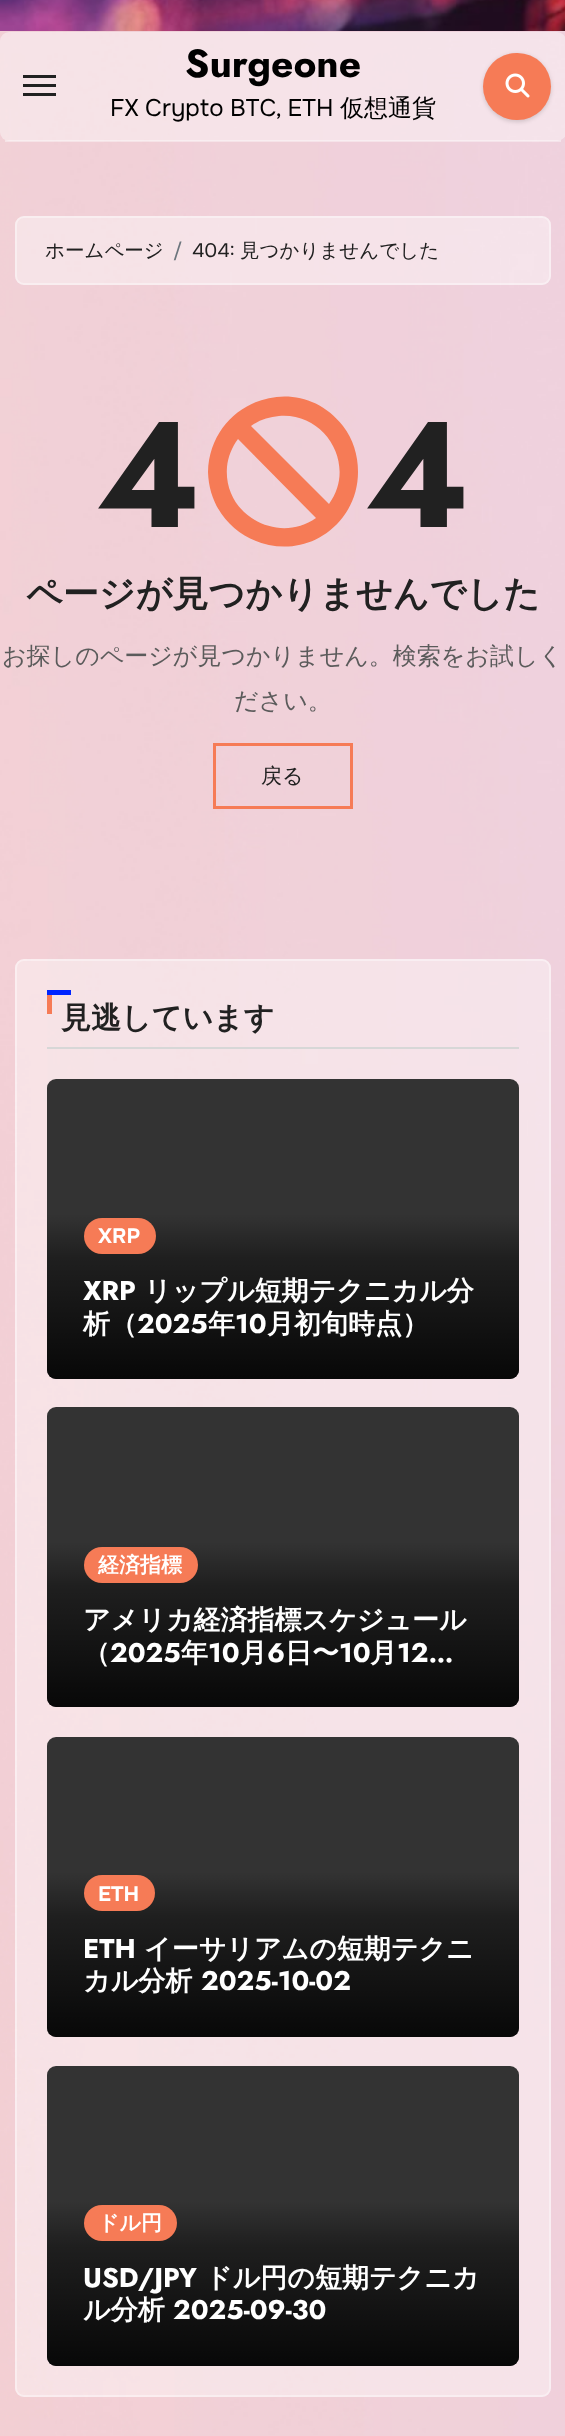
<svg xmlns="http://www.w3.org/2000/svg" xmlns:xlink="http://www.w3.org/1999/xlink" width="565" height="2436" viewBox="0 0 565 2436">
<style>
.cls-1{font:bold 39px Jost;fill:#000000}
.cls-2{font:24px Onest;fill:#000000}
.cls-3{font:500 24px WenQuanYi Zen Hei;fill:#000000}
.cls-4{font:500 19.5px WenQuanYi Zen Hei;fill:#212121}
.cls-5{font:19.5px Onest;fill:#6c757d}
.cls-6{font:19.5px Onest;fill:#212121}
.cls-7{font:bold 150px Jost;fill:#212121}
.cls-8{font:bold 36px WenQuanYi Zen Hei;fill:#212121}
.cls-9{font:500 24px WenQuanYi Zen Hei;fill:#5b5b5b}
.cls-10{font:500 21px WenQuanYi Zen Hei;fill:#212121}
.cls-11{font:bold 30px WenQuanYi Zen Hei;fill:#212121}
.cls-12{font:bold 21px Onest;fill:#ffffff}
.cls-13{font:bold 27px Jost;fill:#ffffff}
.cls-14{font:bold 27px WenQuanYi Zen Hei;fill:#ffffff}
.cls-15{font:bold 21px WenQuanYi Zen Hei;fill:#ffffff}
</style>
<defs>
<linearGradient id="g1" gradientUnits="userSpaceOnUse" x1="283" y1="1079" x2="283" y2="1379"><stop offset="0" stop-color="#000000" stop-opacity="0"/><stop offset="0.45" stop-color="#000000" stop-opacity="0"/><stop offset="0.6" stop-color="#000000" stop-opacity="0.4"/><stop offset="1" stop-color="#000000" stop-opacity="0.85"/></linearGradient>
<linearGradient id="g2" gradientUnits="userSpaceOnUse" x1="283" y1="1407" x2="283" y2="1707"><stop offset="0" stop-color="#000000" stop-opacity="0"/><stop offset="0.45" stop-color="#000000" stop-opacity="0"/><stop offset="0.6" stop-color="#000000" stop-opacity="0.4"/><stop offset="1" stop-color="#000000" stop-opacity="0.85"/></linearGradient>
<linearGradient id="g3" gradientUnits="userSpaceOnUse" x1="283" y1="1737" x2="283" y2="2037"><stop offset="0" stop-color="#000000" stop-opacity="0"/><stop offset="0.45" stop-color="#000000" stop-opacity="0"/><stop offset="0.6" stop-color="#000000" stop-opacity="0.4"/><stop offset="1" stop-color="#000000" stop-opacity="0.85"/></linearGradient>
<linearGradient id="g4" gradientUnits="userSpaceOnUse" x1="283" y1="2066" x2="283" y2="2366"><stop offset="0" stop-color="#000000" stop-opacity="0"/><stop offset="0.45" stop-color="#000000" stop-opacity="0"/><stop offset="0.6" stop-color="#000000" stop-opacity="0.4"/><stop offset="1" stop-color="#000000" stop-opacity="0.85"/></linearGradient>
</defs>
<rect width="100%" height="100%" fill="#ffffff"/>
<image xlink:href="image0.png" x="0" y="31" width="565" height="2405"/>
<image xlink:href="image1.png" x="0" y="0" width="565" height="31"/>
<rect fill="#ffffff" fill-opacity="0.4" x="0" y="32" width="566" height="109" rx="9"/>
<rect fill="#ffffff" fill-opacity="0.4" x="5" y="140" width="556" height="2"/>
<rect fill="#212121" x="23" y="75" width="33" height="3"/>
<rect fill="#212121" x="23" y="84" width="33" height="3"/>
<rect fill="#212121" x="23" y="93" width="33" height="3"/>
<rect fill="#000000" fill-opacity="0.15" filter="blur(2px)" x="483" y="54" width="68" height="68" rx="34"/>
<rect fill="#f67b56" x="483" y="53" width="68" height="67" rx="33.5"/>
<image xlink:href="image2.png" x="505" y="73" width="25" height="25"/>
<rect fill="#ffffff" fill-opacity="0.4" x="15" y="216" width="536" height="69" rx="9"/>
<rect fill="none" stroke="#ffffff" stroke-opacity="0.4" stroke-width="2" x="16" y="217" width="534" height="67" rx="8"/>
<path fill="#f67b56" d="M316 518L238 439C232 447 228 457 227 467C223 515 278 545 316 518ZM329 504C357 466 326 412 279 416C269 417 259 420 251 426ZM208 472C210 400 299 369 343 426C353 439 358 455 358 472C358 488 353 504 343 517C299 574 210 543 208 472Z"/>
<rect fill="none" stroke="#f67b56" stroke-width="3" x="214.5" y="744.5" width="137" height="63"/>
<rect fill="#ffffff" fill-opacity="0.4" x="15" y="959" width="536" height="1438" rx="9"/>
<rect fill="none" stroke="#ffffff" stroke-opacity="0.4" stroke-width="2" x="16" y="960" width="534" height="1436" rx="8"/>
<rect fill="#d7d7d7" x="47" y="1047" width="472" height="2"/>
<rect fill="#f67b56" x="47" y="990" width="5" height="24"/>
<rect fill="#0025ff" x="47" y="990" width="24" height="5"/>
<rect fill="#333333" x="47" y="1079" width="472" height="300" rx="9"/>
<rect fill="url(#g1)" x="47" y="1079" width="472" height="300" rx="9"/>
<rect fill="#f67b56" x="84" y="1218" width="72" height="36" rx="18"/>
<rect fill="#333333" x="47" y="1407" width="472" height="300" rx="9"/>
<rect fill="url(#g2)" x="47" y="1407" width="472" height="300" rx="9"/>
<rect fill="#f67b56" x="84" y="1547" width="114" height="36" rx="18"/>
<rect fill="#333333" x="47" y="1737" width="472" height="300" rx="9"/>
<rect fill="url(#g3)" x="47" y="1737" width="472" height="300" rx="9"/>
<rect fill="#f67b56" x="84" y="1875" width="71" height="36" rx="18"/>
<rect fill="#333333" x="47" y="2066" width="472" height="300" rx="9"/>
<rect fill="url(#g4)" x="47" y="2066" width="472" height="300" rx="9"/>
<rect fill="#f67b56" x="84" y="2205" width="93" height="36" rx="18"/>
<text class="cls-1" x="185" y="77">Surgeone</text>
<text class="cls-2" x="110" y="116">FX Crypto BTC, ETH</text>
<text class="cls-3" x="340" y="116">仮想通貨</text>
<text class="cls-4" x="45" y="257">ホームページ</text>
<text class="cls-5" x="173" y="257">/</text>
<text class="cls-6" x="192" y="257">404:</text>
<text class="cls-4" x="240" y="257">見つかりませんでした</text>
<text class="cls-7" x="96" y="527">4</text>
<text class="cls-7" x="365" y="527">4</text>
<text class="cls-8" x="26" y="606">ページが見つかりませんでした</text>
<text class="cls-9" x="2" y="664">お探しのページが見つかりません。検索をお試しく</text>
<text class="cls-9" x="234" y="709">ださい。</text>
<text class="cls-10" x="261" y="783">戻る</text>
<text class="cls-11" x="61" y="1028">見逃しています</text>
<text class="cls-12" x="98" y="1243">XRP</text>
<text class="cls-13" x="83" y="1300">XRP</text>
<text class="cls-14" x="144" y="1300">リップル短期テクニカル分</text>
<text class="cls-14" x="83" y="1333">析（</text>
<text class="cls-13" x="137" y="1333">2025</text>
<text class="cls-14" x="208" y="1333">年</text>
<text class="cls-13" x="235" y="1333">10</text>
<text class="cls-14" x="267" y="1333">月初旬時点）</text>
<text class="cls-15" x="98" y="1572">経済指標</text>
<text class="cls-14"><tspan x="83" y="1629">アメリカ経済指標スケジュール</tspan><tspan x="83" y="1662">（</tspan></text>
<text class="cls-13" x="110" y="1662">2025</text>
<text class="cls-14" x="181" y="1662">年</text>
<text class="cls-13" x="208" y="1662">10</text>
<text class="cls-14" x="240" y="1662">月</text>
<text class="cls-13" x="267" y="1662">6</text>
<text class="cls-14" x="285" y="1662">日〜</text>
<text class="cls-13" x="339" y="1662">10</text>
<text class="cls-14" x="370" y="1662">月</text>
<text class="cls-13" x="397" y="1662">12…</text>
<text class="cls-12" x="98" y="1901">ETH</text>
<text class="cls-13" x="83" y="1958">ETH</text>
<text class="cls-14" x="144" y="1958">イーサリアムの短期テクニ</text>
<text class="cls-14" x="83" y="1990">カル分析</text>
<text class="cls-13" x="201" y="1990">2025-10-02</text>
<text class="cls-15" x="98" y="2230">ドル円</text>
<text class="cls-13" x="83" y="2287">USD/JPY</text>
<text class="cls-14" x="205" y="2287">ドル円の短期テクニカ</text>
<text class="cls-14" x="83" y="2319">ル分析</text>
<text class="cls-13" x="173" y="2319">2025-09-30</text>
</svg>
